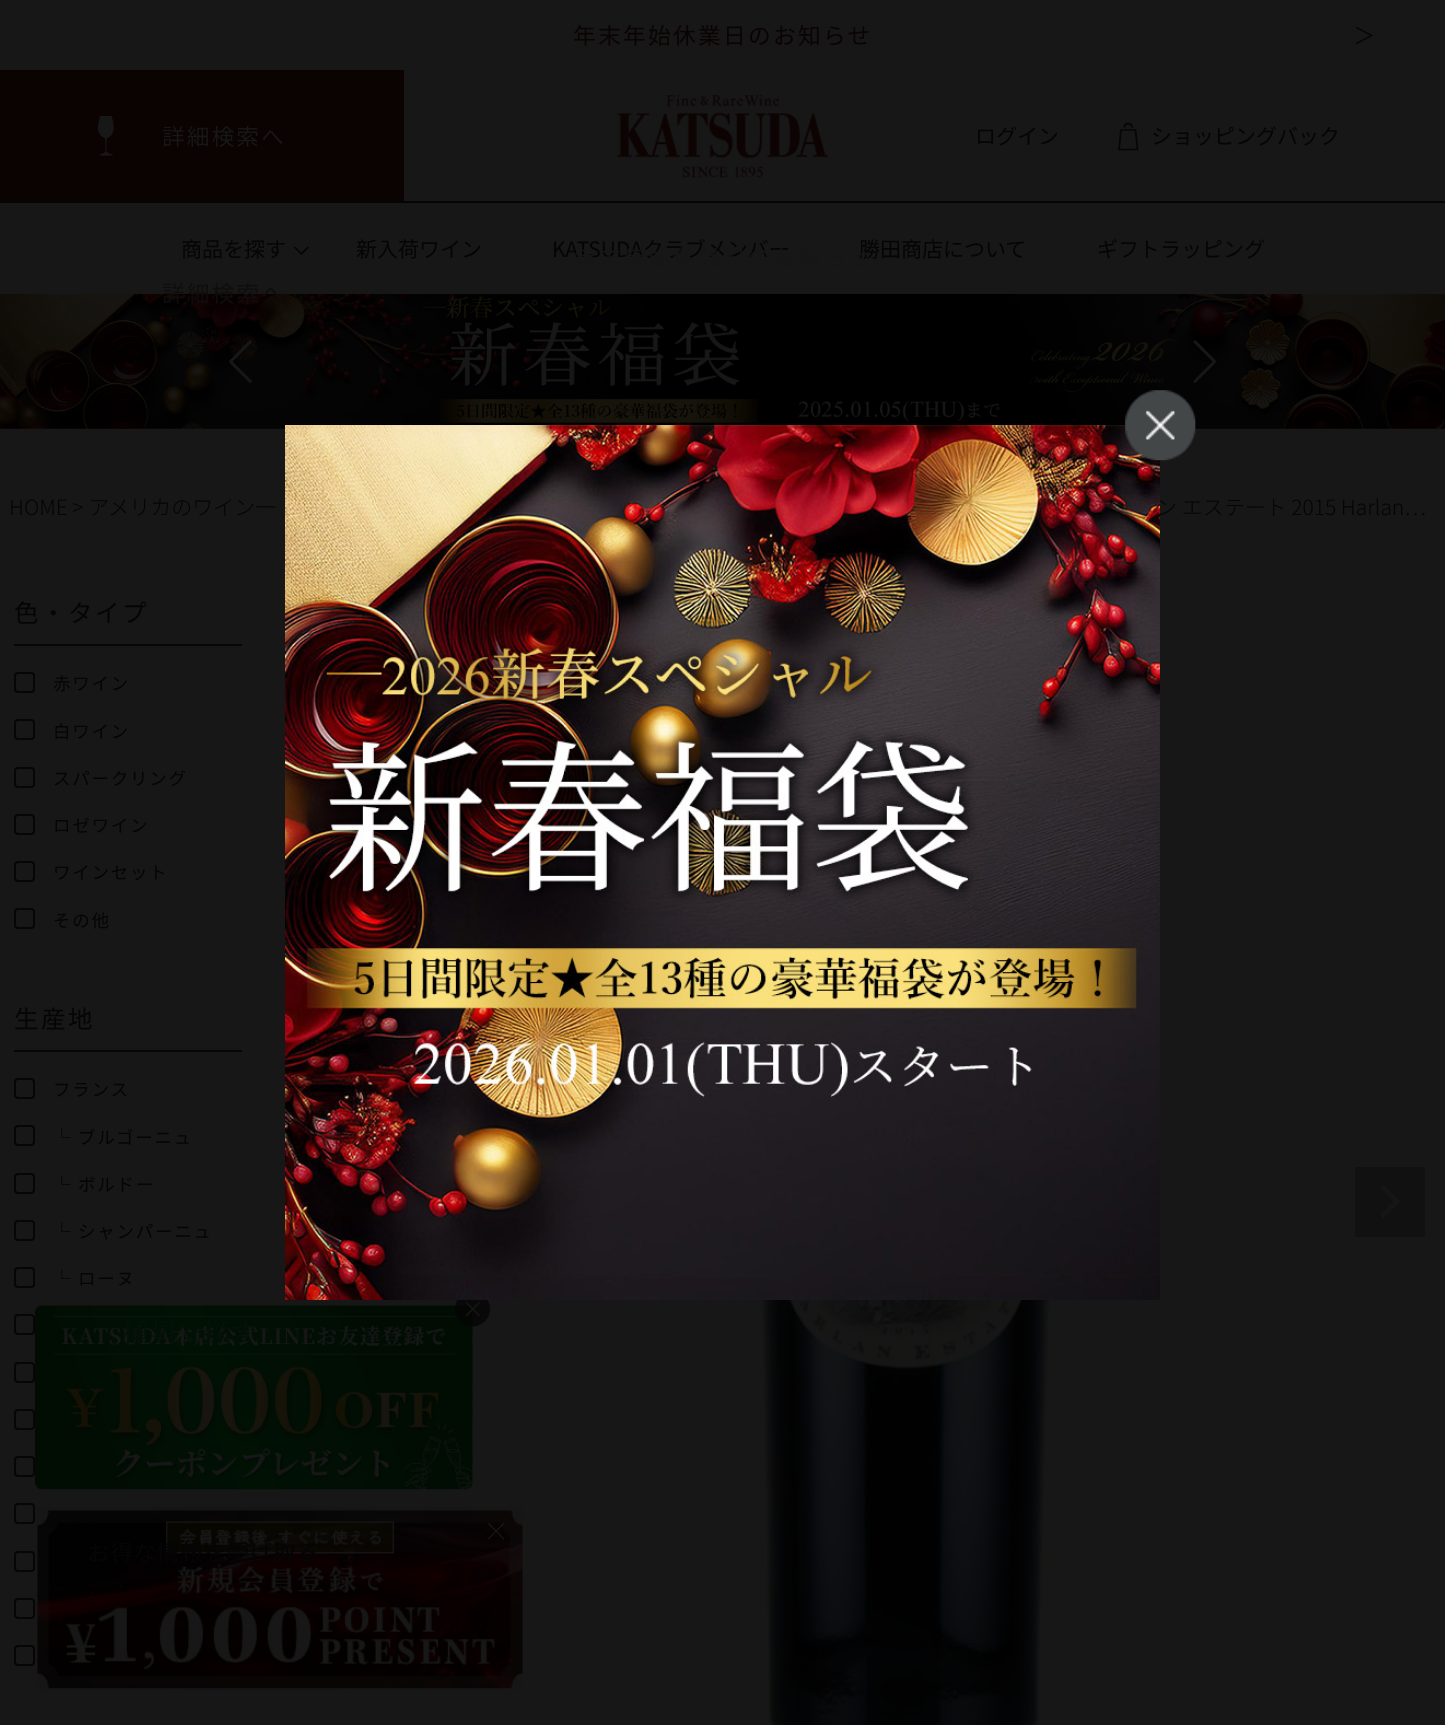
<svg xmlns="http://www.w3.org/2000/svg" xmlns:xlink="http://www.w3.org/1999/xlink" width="1445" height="1725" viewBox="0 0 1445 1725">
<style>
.cls-1{font:22.75px Noto Sans JP;letter-spacing:2.25px;fill:#0b0404}
.cls-2{font:22.75px Noto Sans JP;fill:#0b0404}
.cls-3{font:22.75px Noto Sans JP;letter-spacing:2px;fill:#171717}
.cls-4{font:21px Noto Sans JP;fill:#050505}
.cls-5{font:22.75px Noto Sans JP;letter-spacing:2.25px;fill:#171717}
.cls-6{font:22.75px Noto Sans JP;letter-spacing:2px;fill:#110d0d}
.cls-7{font:500 26.25px Noto Serif JP;letter-spacing:1px;fill:#051208}
.cls-8{font:500 22.75px Noto Sans JP;letter-spacing:0.5px;fill:#050505}
.cls-9{font:300 21px Noto Sans JP;fill:#050505}
.cls-10{font:24.5px Noto Sans JP;letter-spacing:2.5px;fill:#050505}
.cls-11{font:17.5px Noto Sans JP;letter-spacing:1.75px;fill:#050505}
.cls-12{font:300 26.25px Noto Sans JP;fill:#171717}
</style>
<rect width="100%" height="100%" fill="#171717"/>
<rect fill="#050505" x="0" y="201" width="1445" height="2"/>
<rect fill="#0b0202" x="0" y="70" width="404" height="131"/>
<image xlink:href="image0.png" x="98" y="116" width="16" height="40"/>
<image xlink:href="image1.png" x="617" y="95" width="211" height="83"/>
<path fill="none" stroke="#060607" stroke-width="1.7" stroke-linecap="round" stroke-linejoin="round" d="M1124.5 127C1124.5 122.5 1132 122.5 1132 127"/>
<path fill="none" stroke="#060607" stroke-width="1.7" stroke-linejoin="round" d="M1135.5 130H1121L1119 149.5H1137.5Z"/>
<path fill="#050505" d="M300 254L307.5 246.5L309 247.5L301.5 255Z"/>
<path fill="#050505" d="M294 247.5L295 246.5L302.5 254L301.5 255Z"/>
<image xlink:href="image2.png" x="0" y="294" width="1445" height="135"/>
<image xlink:href="image3.png" x="229" y="340" width="23" height="43"/>
<image xlink:href="image4.png" x="1193" y="340" width="23" height="43"/>
<image xlink:href="image7.png" x="1125" y="390" width="71" height="71"/>
<rect fill="#060607" x="14" y="644" width="228" height="2"/>
<rect fill="none" stroke="#060607" stroke-width="2" x="15" y="673" width="19" height="19" rx="3"/>
<rect fill="none" stroke="#060607" stroke-width="2" x="15" y="720" width="19" height="19" rx="3"/>
<rect fill="none" stroke="#060607" stroke-width="2" x="15" y="768" width="19" height="19" rx="3"/>
<rect fill="none" stroke="#060607" stroke-width="2" x="15" y="815" width="19" height="19" rx="3"/>
<rect fill="none" stroke="#060607" stroke-width="2" x="15" y="862" width="19" height="19" rx="3"/>
<rect fill="none" stroke="#060607" stroke-width="2" x="15" y="909" width="19" height="19" rx="3"/>
<rect fill="#060607" x="14" y="1050" width="228" height="2"/>
<rect fill="none" stroke="#060607" stroke-width="2" x="15" y="1079" width="19" height="19" rx="3"/>
<rect fill="none" stroke="#060607" stroke-width="2" x="15" y="1126" width="19" height="19" rx="3"/>
<rect fill="none" stroke="#060607" stroke-width="2" x="15" y="1174" width="19" height="19" rx="3"/>
<rect fill="none" stroke="#060607" stroke-width="2" x="15" y="1221" width="19" height="19" rx="3"/>
<rect fill="none" stroke="#060607" stroke-width="2" x="15" y="1268" width="19" height="19" rx="3"/>
<rect fill="none" stroke="#060607" stroke-width="2" x="15" y="1315" width="19" height="19" rx="3"/>
<rect fill="none" stroke="#060607" stroke-width="2" x="15" y="1363" width="19" height="19" rx="3"/>
<rect fill="none" stroke="#060607" stroke-width="2" x="15" y="1410" width="19" height="19" rx="3"/>
<rect fill="none" stroke="#060607" stroke-width="2" x="15" y="1457" width="19" height="19" rx="3"/>
<rect fill="none" stroke="#060607" stroke-width="2" x="15" y="1504" width="19" height="19" rx="3"/>
<rect fill="none" stroke="#060607" stroke-width="2" x="15" y="1552" width="19" height="19" rx="3"/>
<rect fill="none" stroke="#060607" stroke-width="2" x="15" y="1599" width="19" height="19" rx="3"/>
<rect fill="none" stroke="#060607" stroke-width="2" x="15" y="1646" width="19" height="19" rx="3"/>
<rect fill="#111111" x="1355" y="1167" width="70" height="70"/>
<path fill="#151515" d="M1383.5 1184L1379.5 1188L1393 1201.5L1379.5 1215L1383.5 1219L1401 1201.5Z"/>
<image xlink:href="image8.png" x="751" y="1300" width="308" height="425"/>
<image xlink:href="image10.png" x="35" y="1305" width="438" height="185"/>
<image xlink:href="image9.png" x="455" y="1300" width="35" height="27"/>
<image xlink:href="image11.png" x="37" y="1507" width="486" height="184"/>
<text class="cls-1" x="573" y="44">年末年始休業日のお知らせ</text>
<text class="cls-2" x="1353" y="44">＞</text>
<text class="cls-3" x="162" y="145">詳細検索へ</text>
<text class="cls-4" x="975" y="144">ログイン</text>
<text class="cls-4" x="1151" y="144">ショッピングバック</text>
<text class="cls-4" x="181" y="257">商品を探す</text>
<text class="cls-4" x="356" y="257">新入荷ワイン</text>
<text class="cls-4" x="552" y="257">KATSUDAクラブメンバー</text>
<text class="cls-4" x="859" y="257">勝田商店について</text>
<text class="cls-4" x="1097" y="257">ギフトラッピング</text>
<text class="cls-5" x="573" y="266">年末年始休業日のお知らせ</text>
<text class="cls-6" x="162" y="302">詳細検索へ</text>
<text class="cls-7" x="122" y="1342">種類で探す</text>
<text class="cls-8" x="87" y="1561">お得な情報を受け取る</text>
<text class="cls-9" x="9" y="515">HOME &gt; アメリカのワイン一</text>
<text class="cls-9" x="1156" y="515">ン エステート 2015 Harlan…</text>
<image xlink:href="image5.png" x="285" y="425" width="875" height="875"/>
<image xlink:href="image6.png" x="1125" y="390" width="71" height="71"/>
<text class="cls-10" x="14" y="622">色・タイプ</text>
<text class="cls-11" x="53" y="690">赤ワイン</text>
<text class="cls-11" x="53" y="738">白ワイン</text>
<text class="cls-11" x="53" y="785">スパークリング</text>
<text class="cls-11" x="53" y="832">ロゼワイン</text>
<text class="cls-11" x="53" y="879">ワインセット</text>
<text class="cls-11" x="53" y="927">その他</text>
<text class="cls-10" x="14" y="1028">生産地</text>
<text class="cls-11" x="53" y="1096">フランス</text>
<text class="cls-11" x="53" y="1144">└ ブルゴーニュ</text>
<text class="cls-11" x="53" y="1191">└ ボルドー</text>
<text class="cls-11" x="53" y="1238">└ シャンパーニュ</text>
<text class="cls-11" x="53" y="1285">└ ローヌ</text>
<text class="cls-12" x="483" y="1541">×</text>
</svg>
